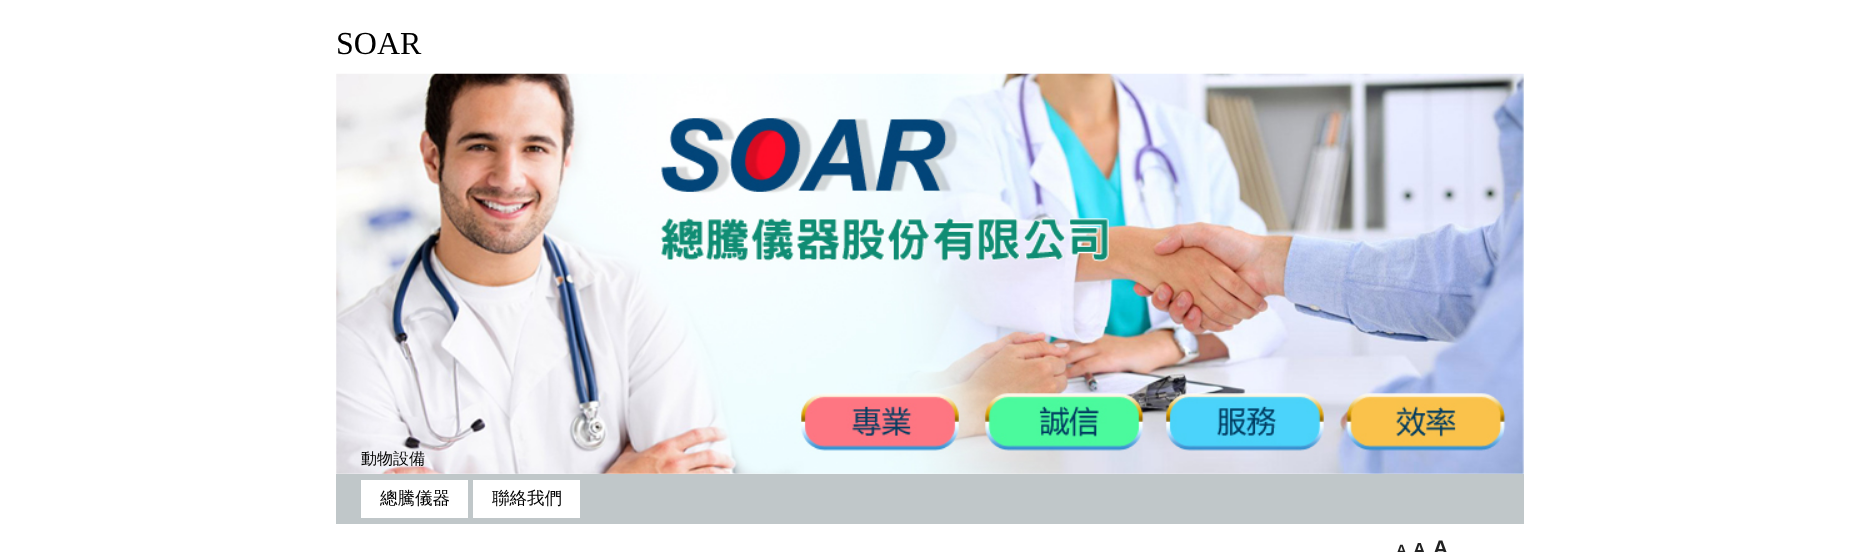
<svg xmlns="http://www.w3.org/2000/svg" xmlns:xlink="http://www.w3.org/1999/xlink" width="1860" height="552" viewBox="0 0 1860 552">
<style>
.cls-1{font:32px Liberation Serif;fill:#000000}
.cls-2{font:500 16px WenQuanYi Zen Hei;fill:#000000}
.cls-3{font:500 17.5px WenQuanYi Zen Hei;fill:#000000}
.cls-4{font:bold 15px Liberation Sans;fill:#222222}
.cls-5{font:bold 17.5px Liberation Sans;fill:#222222}
.cls-6{font:bold 21px Liberation Sans;fill:#222222}
</style>
<rect width="100%" height="100%" fill="#ffffff"/>
<image xlink:href="image0.png" x="336" y="73" width="1188" height="401"/>
<rect fill="#c0c7c9" x="336" y="474" width="1188" height="50"/>
<rect fill="#ffffff" x="361" y="480" width="107" height="38"/>
<rect fill="#ffffff" x="473" y="480" width="107" height="38"/>
<text class="cls-1" x="336" y="54">SOAR</text>
<text class="cls-2" x="361" y="464">動物設備</text>
<text class="cls-3" x="380" y="504">總騰儀器</text>
<text class="cls-3" x="492" y="504">聯絡我們</text>
<text class="cls-4" x="1396" y="555">A</text>
<text class="cls-5" x="1413" y="555">A</text>
<text class="cls-6" x="1433" y="555">A</text>
</svg>
